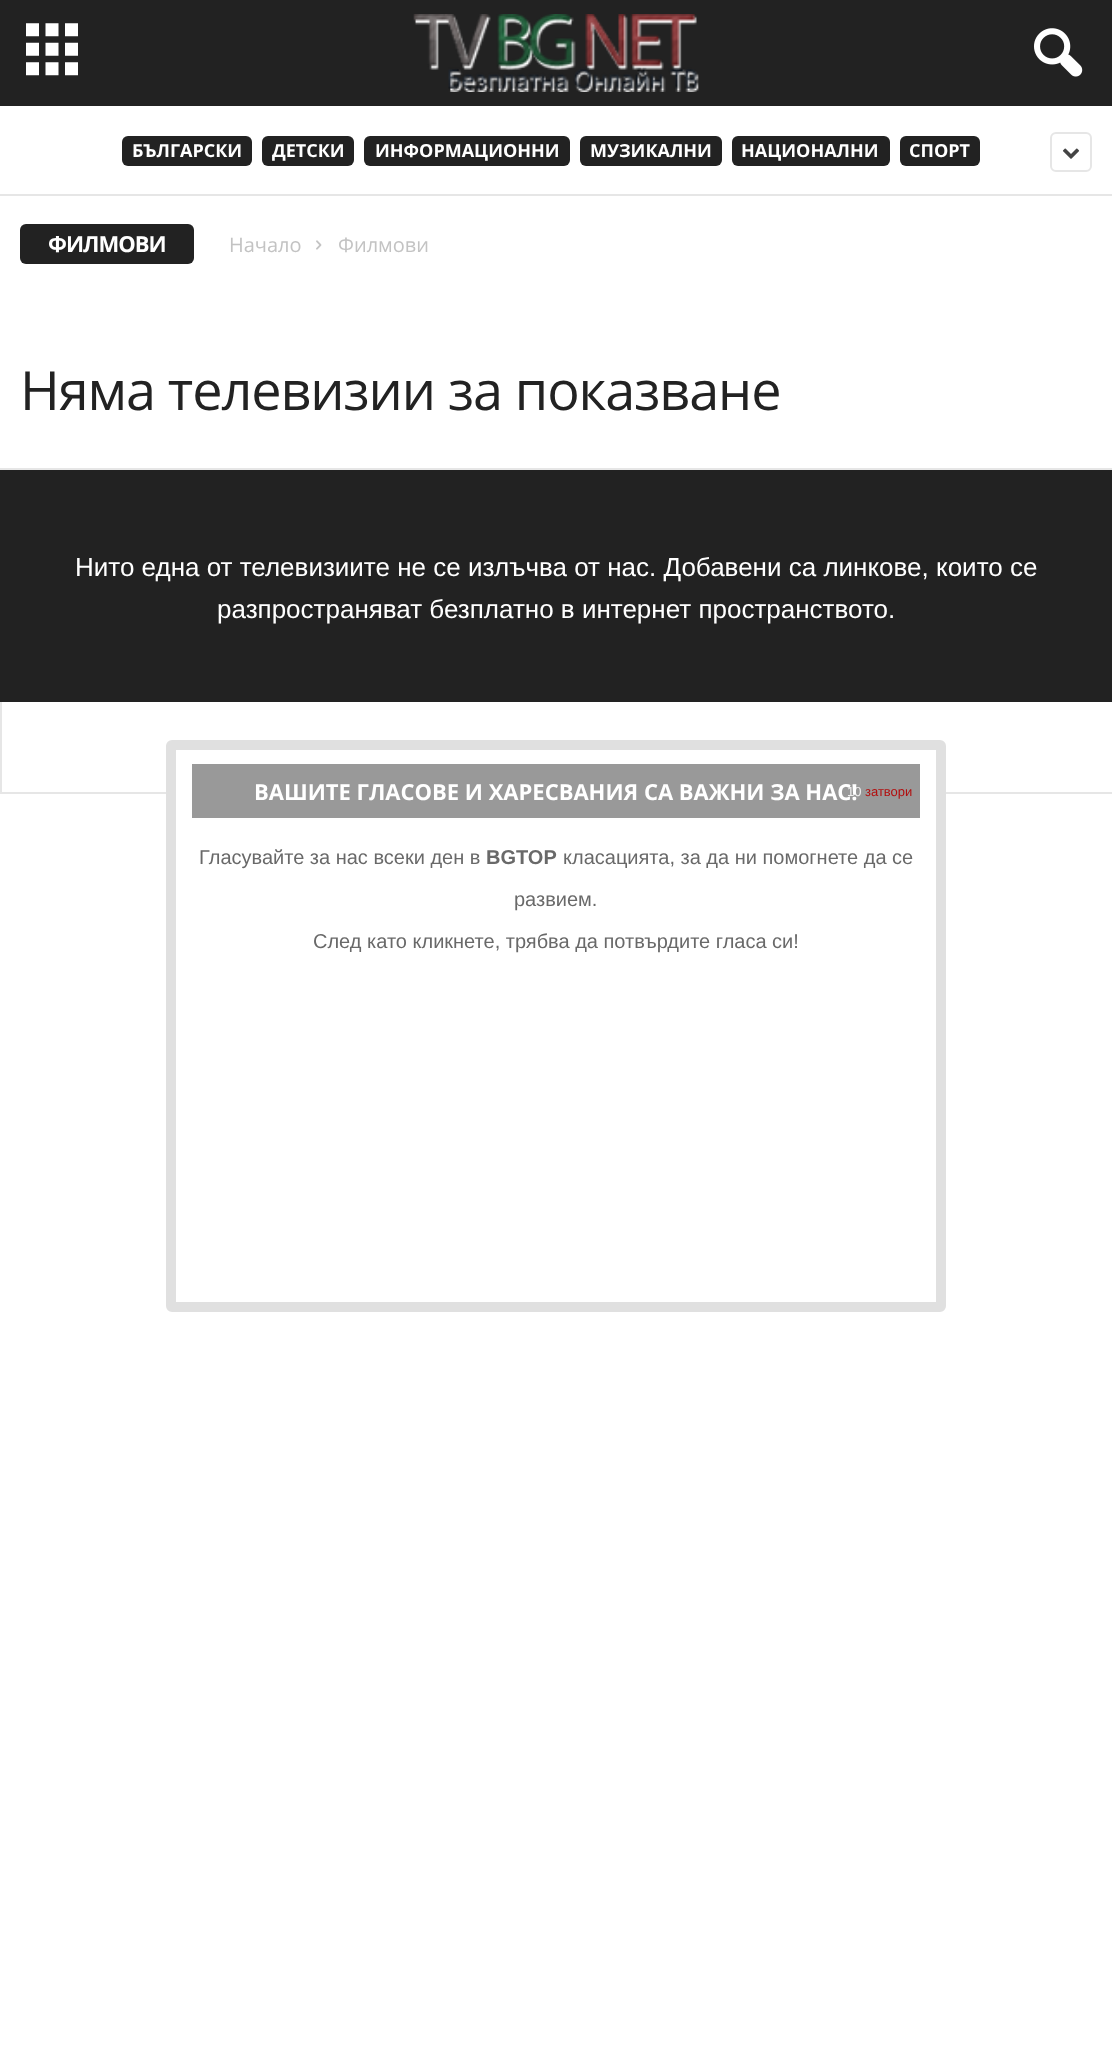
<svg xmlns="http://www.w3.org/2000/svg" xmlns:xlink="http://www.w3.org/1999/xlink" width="1112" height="2049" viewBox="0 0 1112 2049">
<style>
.cls-1{font:bold 18px Open Sans;fill:#ffffff}
.cls-2{font:bold 22px Open Sans;letter-spacing:-1px;fill:#ffffff}
.cls-3{font:20px Open Sans;fill:#c3c3c3}
.cls-4{font:54px Open Sans;letter-spacing:-1.1px;fill:#222222}
.cls-5{font:26px Liberation Sans;fill:#ffffff}
.cls-6{font:13px Liberation Sans;fill:#f0f0f0}
.cls-7{font:bold 22px Open Sans;fill:#ffffff}
.cls-8{font:13px Liberation Sans;fill:#b20e0e}
.cls-9{font:20px Liberation Sans;fill:#696969}
.cls-10{font:bold 20px Liberation Sans;fill:#696969}
</style>
<rect width="100%" height="100%" fill="#ffffff"/>
<rect fill="#222222" x="0" y="0" width="1112" height="106"/>
<image xlink:href="image0.png" x="26" y="23" width="52" height="53"/>
<image xlink:href="image1.png" x="413" y="14" width="286" height="78"/>
<image xlink:href="image2.png" x="1034" y="28" width="49" height="49"/>
<rect fill="#222222" x="122" y="136" width="130" height="30" rx="6"/>
<rect fill="#222222" x="262" y="136" width="92" height="30" rx="6"/>
<rect fill="#222222" x="364" y="136" width="206" height="30" rx="6"/>
<rect fill="#222222" x="580" y="136" width="142" height="30" rx="6"/>
<rect fill="#222222" x="732" y="136" width="158" height="30" rx="6"/>
<rect fill="#222222" x="900" y="136" width="80" height="30" rx="6"/>
<rect fill="none" stroke="#e6e6e6" stroke-width="2" x="1051" y="133" width="40" height="38" rx="5"/>
<image xlink:href="image3.png" x="1062" y="148" width="18" height="11"/>
<rect fill="#e6e6e6" x="0" y="468" width="1112" height="2"/>
<rect fill="#e6e6e6" x="0" y="194" width="1112" height="2"/>
<rect fill="#222222" x="20" y="224" width="174" height="40" rx="6"/>
<image xlink:href="image4.png" x="316" y="240" width="6" height="10"/>
<rect fill="#222222" x="0" y="470" width="1112" height="232"/>
<rect fill="#e6e6e6" x="0" y="702" width="2" height="90"/>
<rect fill="#e6e6e6" x="0" y="792" width="1112" height="2"/>
<rect fill="#ffffff" stroke="#e0e0e0" stroke-width="10" x="171" y="745" width="770" height="562" rx="1"/>
<rect fill="#999999" x="192" y="764" width="728" height="54"/>
<text class="cls-1" x="132" y="157">БЪЛГАРСКИ</text>
<text class="cls-1" x="272" y="157">ДЕТСКИ</text>
<text class="cls-1" x="375" y="157">ИНФОРМАЦИОННИ</text>
<text class="cls-1" x="590" y="157">МУЗИКАЛНИ</text>
<text class="cls-1" x="741" y="157">НАЦИОНАЛНИ</text>
<text class="cls-1" x="909" y="157">СПОРТ</text>
<text class="cls-2" x="48" y="252">ФИЛМОВИ</text>
<text class="cls-3" x="229" y="252">Начало</text>
<text class="cls-3" x="338" y="252">Филмови</text>
<text class="cls-4" x="20" y="410">Няма телевизии за показване</text>
<text class="cls-5" x="75" y="576">Нито една от телевизиите не се излъчва от нас. Добавени са линкове, които се</text>
<text class="cls-5" x="217" y="618">разпространяват безплатно в интернет пространството.</text>
<text class="cls-6" x="847" y="796">10</text>
<text class="cls-7" x="254" y="800">ВАШИТЕ ГЛАСОВЕ И ХАРЕСВАНИЯ СА ВАЖНИ ЗА НАС!</text>
<text class="cls-8" x="865" y="796">затвори</text>
<text class="cls-9" x="199" y="864">Гласувайте за нас всеки ден в</text>
<text class="cls-10" x="486" y="864">BGTOP</text>
<text class="cls-9" x="563" y="864">класацията, за да ни помогнете да се</text>
<text class="cls-9" x="514" y="906">развием.</text>
<text class="cls-9" x="313" y="948">След като кликнете, трябва да потвърдите гласа си!</text>
</svg>
